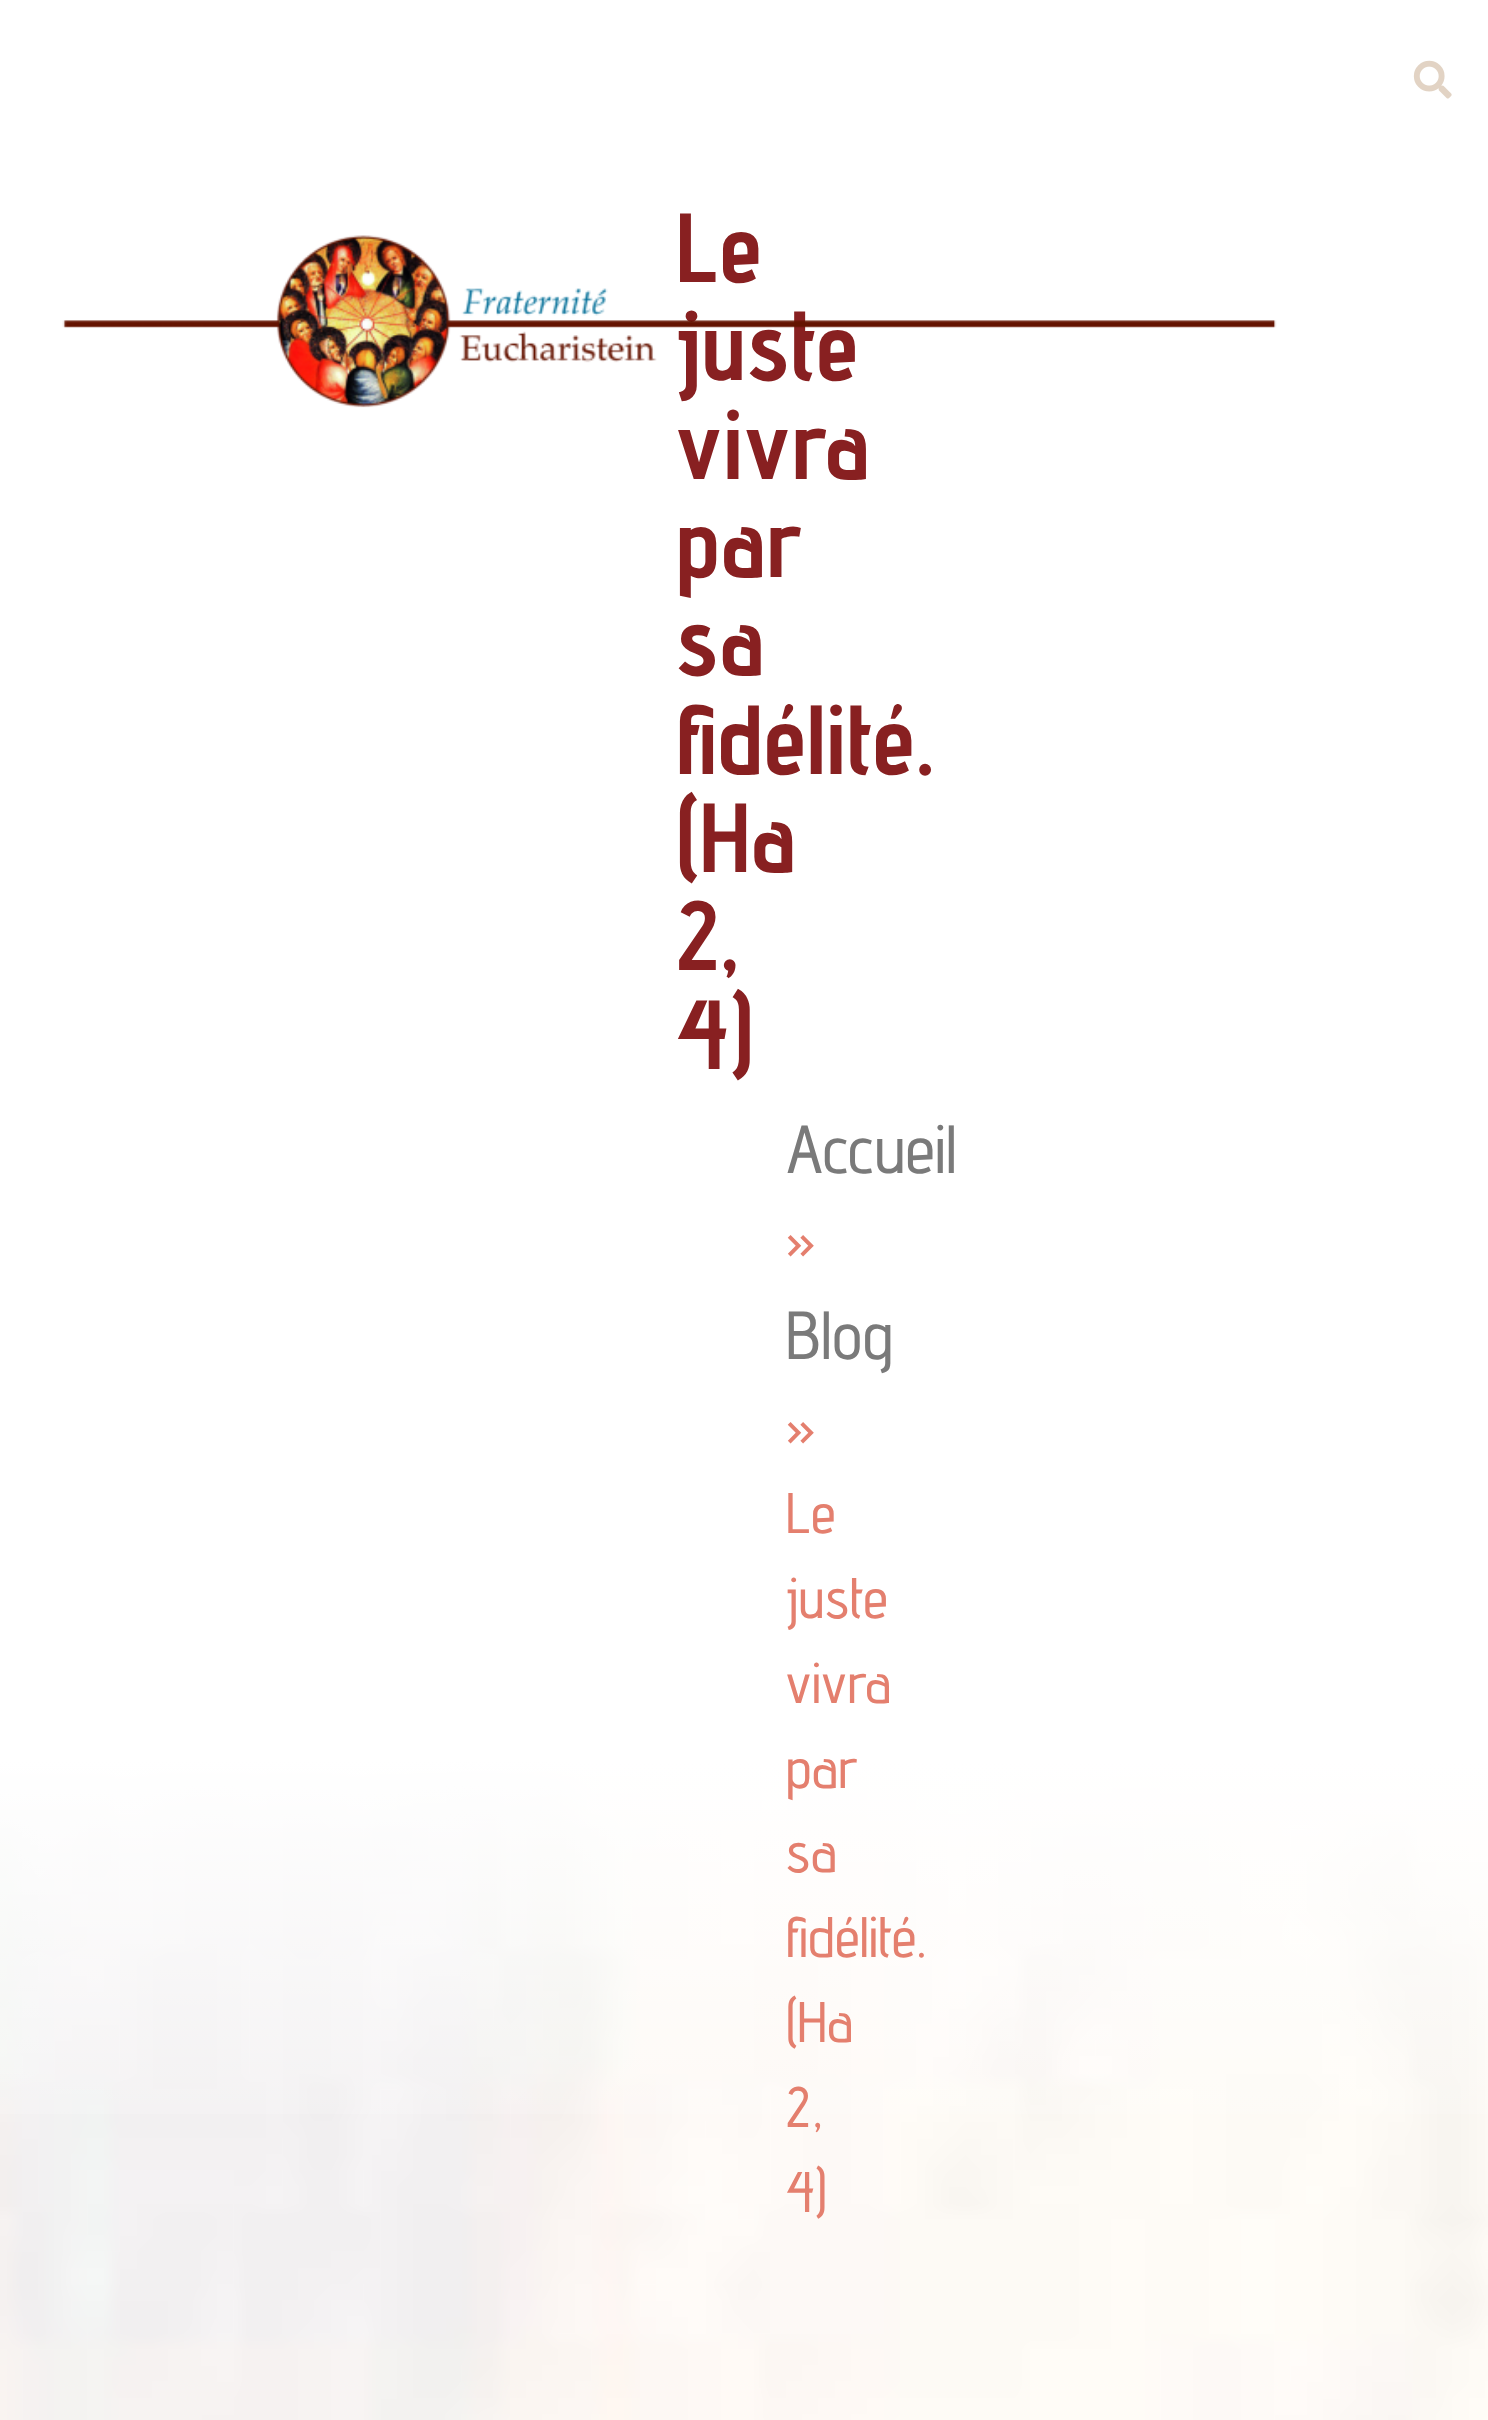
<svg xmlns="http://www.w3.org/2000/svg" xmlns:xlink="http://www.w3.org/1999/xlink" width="1488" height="2420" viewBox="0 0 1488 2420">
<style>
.cls-1{font:bold 98px Advent Pro;fill:#882021}
.cls-2{font:500 68px Advent Pro;fill:#7a7a7a}
.cls-3{font:500 57px Advent Pro;fill:#e47f6e}
</style>
<defs>
<linearGradient id="g1" gradientUnits="userSpaceOnUse" x1="745" y1="2236" x2="745" y2="159"><stop offset="0.03" stop-color="#ffffff" stop-opacity="0"/><stop offset="0.23" stop-color="#ffffff"/></linearGradient>
</defs>
<rect width="100%" height="100%" fill="#ffffff"/>
<image xlink:href="image0.png" x="0" y="1761" width="1488" height="659"/>
<image xlink:href="image1.png" x="1413" y="60" width="39" height="39"/>
<rect fill="url(#g1)" x="0" y="1761" width="1488" height="353"/>
<text class="cls-1"><tspan x="676" y="282">Le</tspan><tspan x="676" y="380">juste</tspan><tspan x="676" y="479">vivra</tspan><tspan x="676" y="577">par</tspan><tspan x="676" y="675">sa</tspan><tspan x="676" y="774">fidélité.</tspan><tspan x="676" y="872">(Ha</tspan><tspan x="676" y="970">2,</tspan><tspan x="676" y="1069">4)</tspan></text>
<text class="cls-2" x="786" y="1173">Accueil</text>
<text class="cls-3" x="786" y="1261">»</text>
<text class="cls-2" x="786" y="1359">Blog</text>
<text class="cls-3"><tspan x="786" y="1448">»</tspan><tspan x="786" y="1533">Le</tspan><tspan x="786" y="1618">juste</tspan><tspan x="786" y="1703">vivra</tspan><tspan x="786" y="1788">par</tspan><tspan x="786" y="1872">sa</tspan><tspan x="786" y="1957">fidélité.</tspan><tspan x="786" y="2042">(Ha</tspan><tspan x="786" y="2127">2,</tspan><tspan x="786" y="2212">4)</tspan></text>
<image xlink:href="image2.png" x="62" y="235" width="1215" height="173"/>
</svg>
